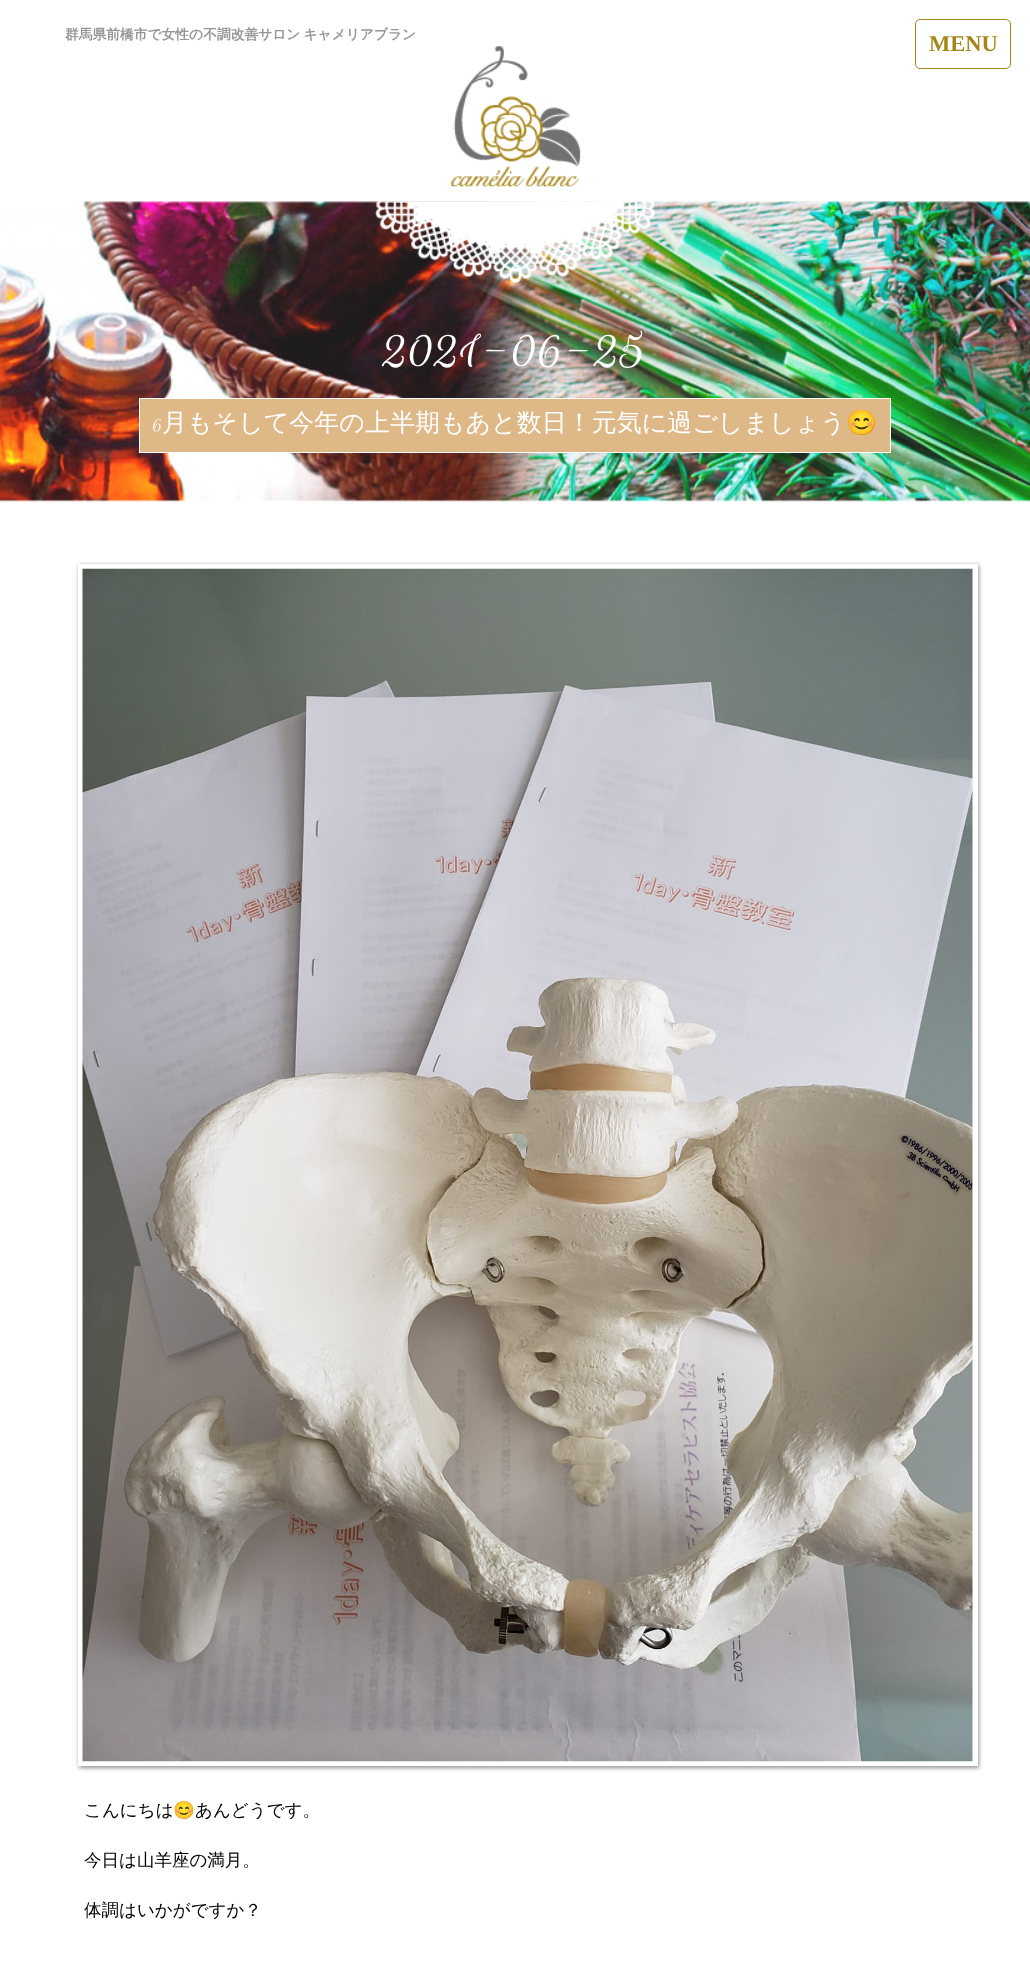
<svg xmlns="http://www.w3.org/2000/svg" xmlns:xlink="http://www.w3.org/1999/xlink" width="1030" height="1974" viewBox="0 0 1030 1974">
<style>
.cls-1{font:bold 13.75px WenQuanYi Zen Hei;fill:#959595}
.cls-2{font:bold 22.5px Liberation Serif;fill:#a68617}
.cls-3{font:65px Rouge Script;fill:#feffff}
.cls-4{font:25px Rouge Script;fill:#feffff}
.cls-5{font:500 25px WenQuanYi Zen Hei;fill:#feffff}
.cls-6{font:25px Noto Color Emoji;fill:#feffff}
.cls-7{font:500 17.5px WenQuanYi Zen Hei;fill:#000000}
.cls-8{font:17.5px Noto Color Emoji;fill:#000000}
</style>
<rect width="100%" height="100%" fill="#ffffff"/>
<rect fill="none" stroke="#a68617" x="915.5" y="19.5" width="95" height="49" rx="4.5"/>
<image xlink:href="image0.png" x="451" y="46" width="130" height="141"/>
<image xlink:href="image1.png" x="0" y="201" width="1030" height="301"/>
<image xlink:href="image2.png" x="375" y="201" width="280" height="82"/>
<rect fill="#deb887" stroke="#feffff" x="139.5" y="398.5" width="751" height="54"/>
<rect fill="#646464" fill-opacity="0.7" filter="blur(2px)" x="79" y="565" width="900" height="1203"/>
<rect fill="#ffffff" x="78" y="564" width="900" height="1202"/>
<image xlink:href="image3.png" x="82" y="568" width="891" height="1194"/>
<text class="cls-1" x="65" y="39" word-spacing="-1">群馬県前橋市で女性の不調改善サロン キャメリアブラン</text>
<text class="cls-2" x="929" y="51">MENU</text>
<text class="cls-3" x="384" y="366">2021-06-25</text>
<text class="cls-4" x="153" y="431">6</text>
<text class="cls-5" x="162" y="431">月もそして今年の上半期もあと数日！元気に過ごしましょう</text>
<text class="cls-6" x="846" y="431">😊</text>
<text class="cls-7" x="84" y="1816">こんにちは</text>
<text class="cls-8" x="173" y="1816">😊</text>
<text class="cls-7" x="195" y="1816">あんどうです。</text>
<text class="cls-7" x="84" y="1866">今日は山羊座の満月。</text>
<text class="cls-7" x="84" y="1916">体調はいかがですか？</text>
</svg>
